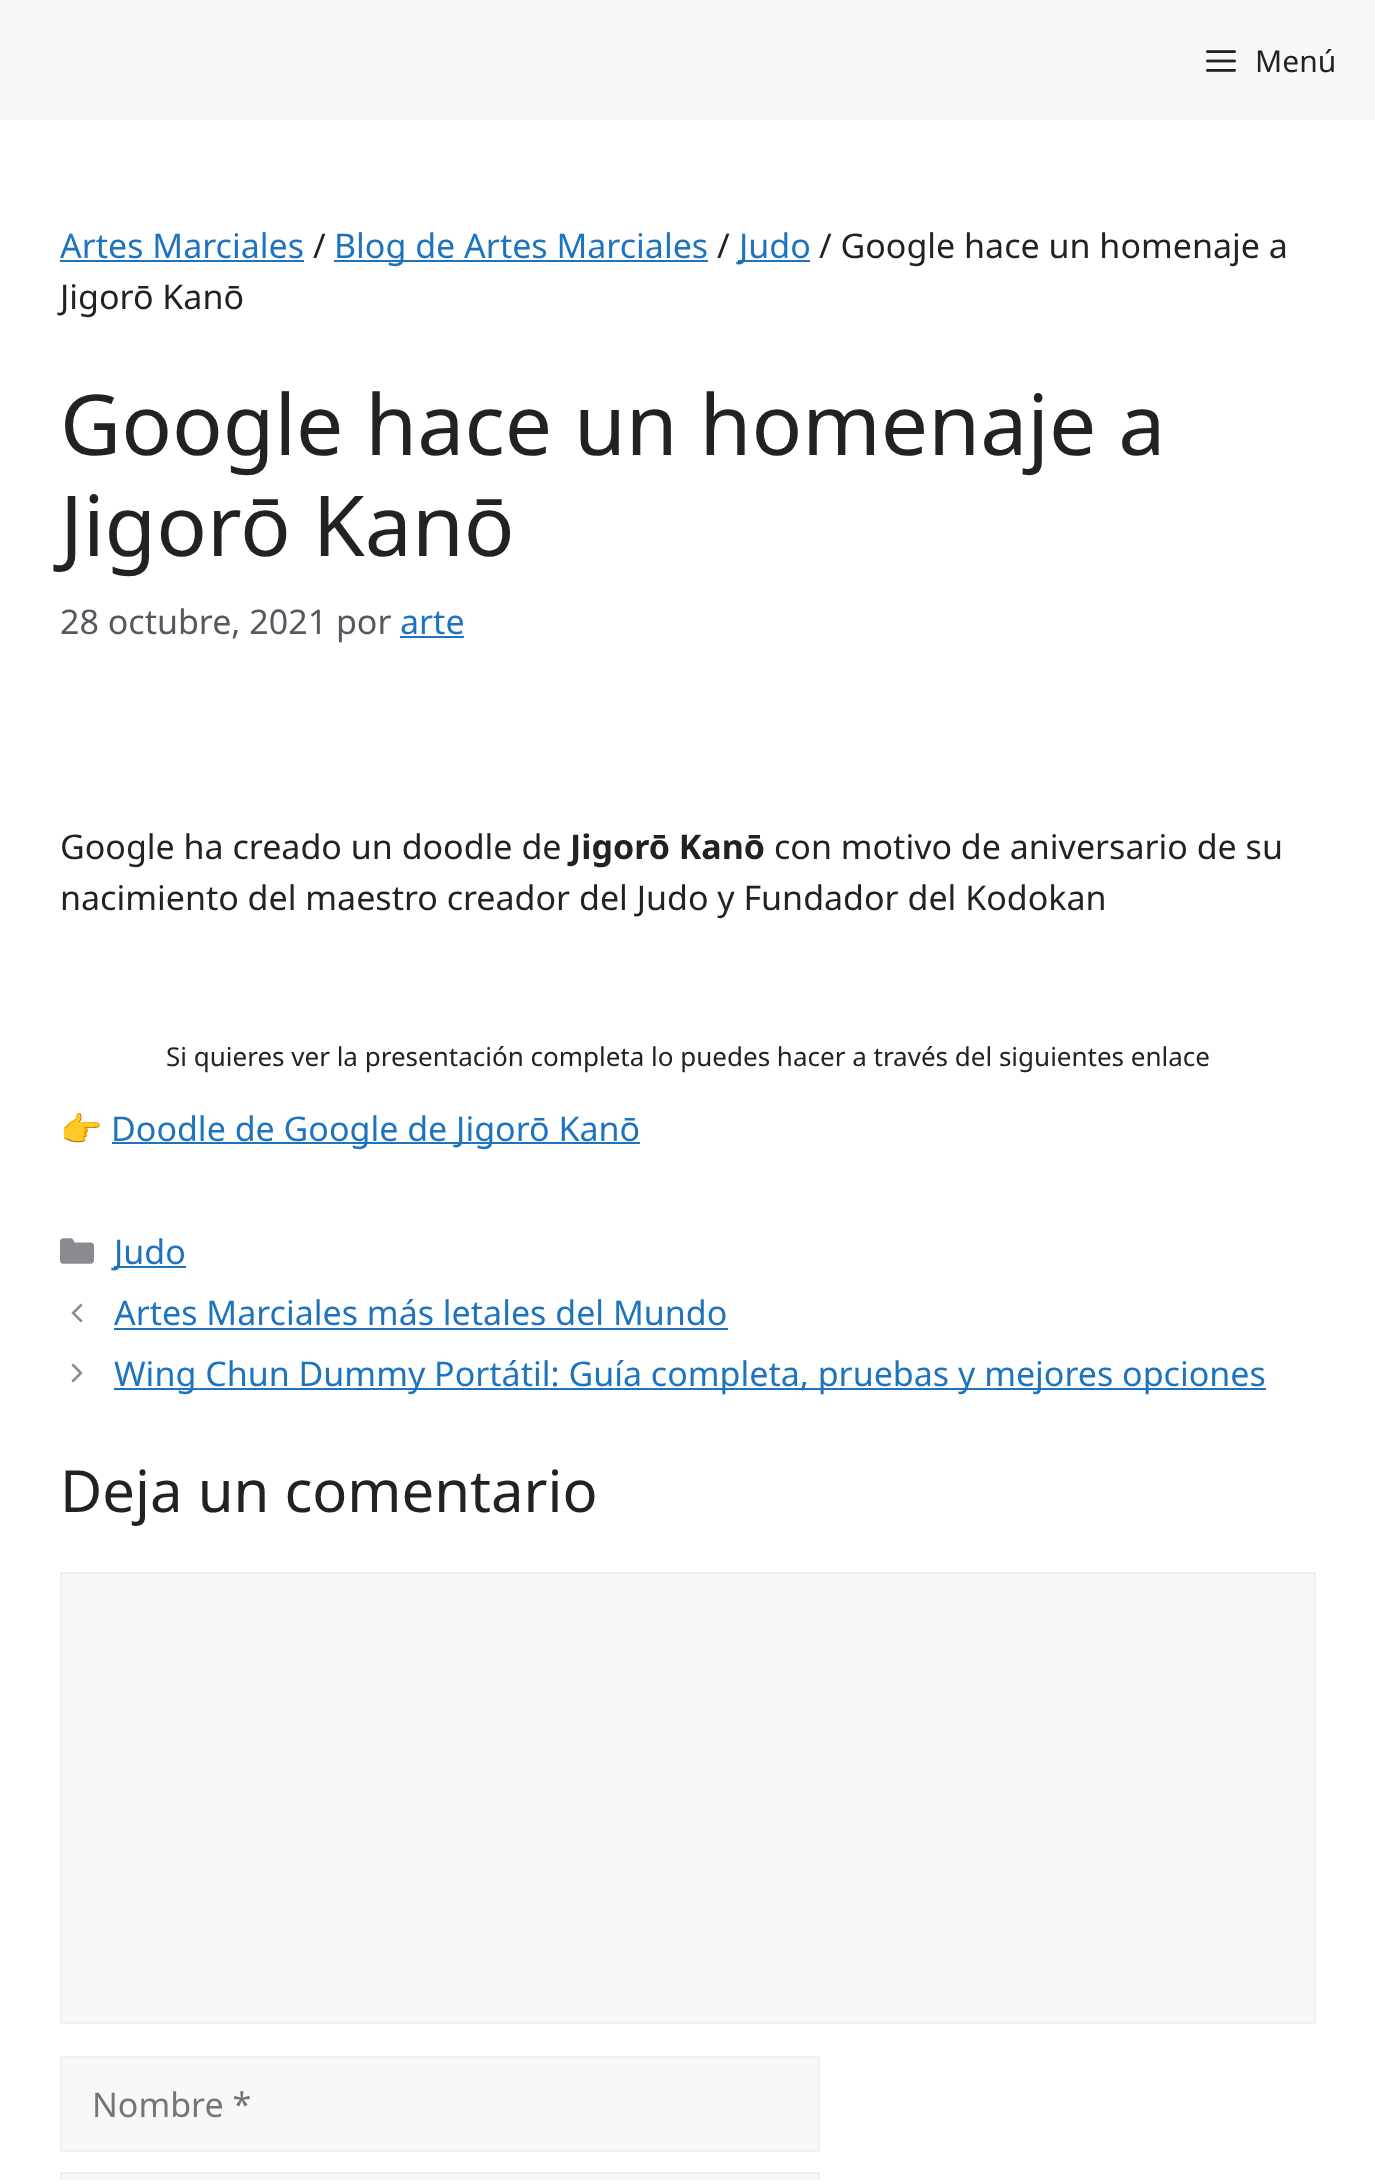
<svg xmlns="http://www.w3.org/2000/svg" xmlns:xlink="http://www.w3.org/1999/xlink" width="1375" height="2180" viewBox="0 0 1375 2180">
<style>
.cls-1{font:30px Noto Sans;fill:#222222}
.cls-2{font:34px Noto Sans;fill:#1e73be}
.cls-3{font:34px Noto Sans;fill:#222222}
.cls-4{font:84px Noto Sans;fill:#222222}
.cls-5{font:34px Noto Sans;fill:#575760}
.cls-6{font:bold 34px Noto Sans;fill:#222222}
.cls-7{font:26px Noto Sans;fill:#222222}
.cls-8{font:34px Noto Color Emoji;fill:#222222}
.cls-9{font:58px Noto Sans;fill:#222222}
.cls-10{font:34px Noto Sans;fill:#757575}
</style>
<rect width="100%" height="100%" fill="#ffffff"/>
<rect fill="#f7f8f9" x="0" y="0" width="1375" height="120"/>
<image xlink:href="image0.png" x="1206" y="50" width="30" height="22"/>
<rect fill="#1e73be" x="60" y="260" width="244" height="2"/>
<rect fill="#1e73be" x="334" y="260" width="374" height="2"/>
<rect fill="#1e73be" x="738" y="260" width="72" height="2"/>
<rect fill="#1e73be" x="400" y="636" width="64" height="2"/>
<rect fill="#1e73be" x="112" y="1142" width="528" height="2"/>
<image xlink:href="image1.png" x="60" y="1238" width="34" height="26"/>
<rect fill="#1e73be" x="114" y="1266" width="72" height="2"/>
<image xlink:href="image2.png" x="71" y="1303" width="12" height="20"/>
<rect fill="#1e73be" x="114" y="1328" width="614" height="2"/>
<image xlink:href="image3.png" x="71" y="1363" width="12" height="20"/>
<rect fill="#1e73be" x="114" y="1388" width="1152" height="2"/>
<rect fill="#f7f8f9" stroke="#f0f0f0" stroke-width="2" x="61" y="1573" width="1254" height="450"/>
<rect fill="#f7f8f9" stroke="#f0f0f0" stroke-width="2" x="61" y="2057" width="758" height="94"/>
<rect fill="#f7f8f9" stroke="#f0f0f0" stroke-width="2" x="61" y="2173" width="758" height="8"/>
<text class="cls-1" x="1255" y="72">Menú</text>
<text class="cls-2" x="60" y="258">Artes Marciales</text>
<text class="cls-3" x="313" y="258">/</text>
<text class="cls-2" x="334" y="258">Blog de Artes Marciales</text>
<text class="cls-3" x="717" y="258">/</text>
<text class="cls-2" x="739" y="258">Judo</text>
<text class="cls-3" x="819" y="258">/ Google hace un homenaje a</text>
<text class="cls-3" x="60" y="309">Jigorō Kanō</text>
<text class="cls-4"><tspan x="60" y="455">Google hace un homenaje a</tspan><tspan x="60" y="556">Jigorō Kanō</tspan></text>
<text class="cls-5" x="60" y="634">28 octubre, 2021 por</text>
<text class="cls-2" x="400" y="634">arte</text>
<text class="cls-3" x="60" y="859">Google ha creado un doodle de</text>
<text class="cls-6" x="570" y="859">Jigorō Kanō</text>
<text class="cls-3" x="774" y="859">con motivo de aniversario de su</text>
<text class="cls-3" x="60" y="910">nacimiento del maestro creador del Judo y Fundador del Kodokan</text>
<text class="cls-7" x="166" y="1066">Si quieres ver la presentación completa lo puedes hacer a través del siguientes enlace</text>
<text class="cls-8" x="60" y="1141">👉</text>
<text class="cls-2" x="111" y="1141">Doodle de Google de Jigorō Kanō</text>
<text class="cls-2"><tspan x="114" y="1264">Judo</tspan><tspan x="114" y="1325">Artes Marciales más letales del Mundo</tspan><tspan x="114" y="1386">Wing Chun Dummy Portátil: Guía completa, pruebas y mejores opciones</tspan></text>
<text class="cls-9" x="60" y="1512">Deja un comentario</text>
<text class="cls-10" x="92" y="2117">Nombre *</text>
</svg>
